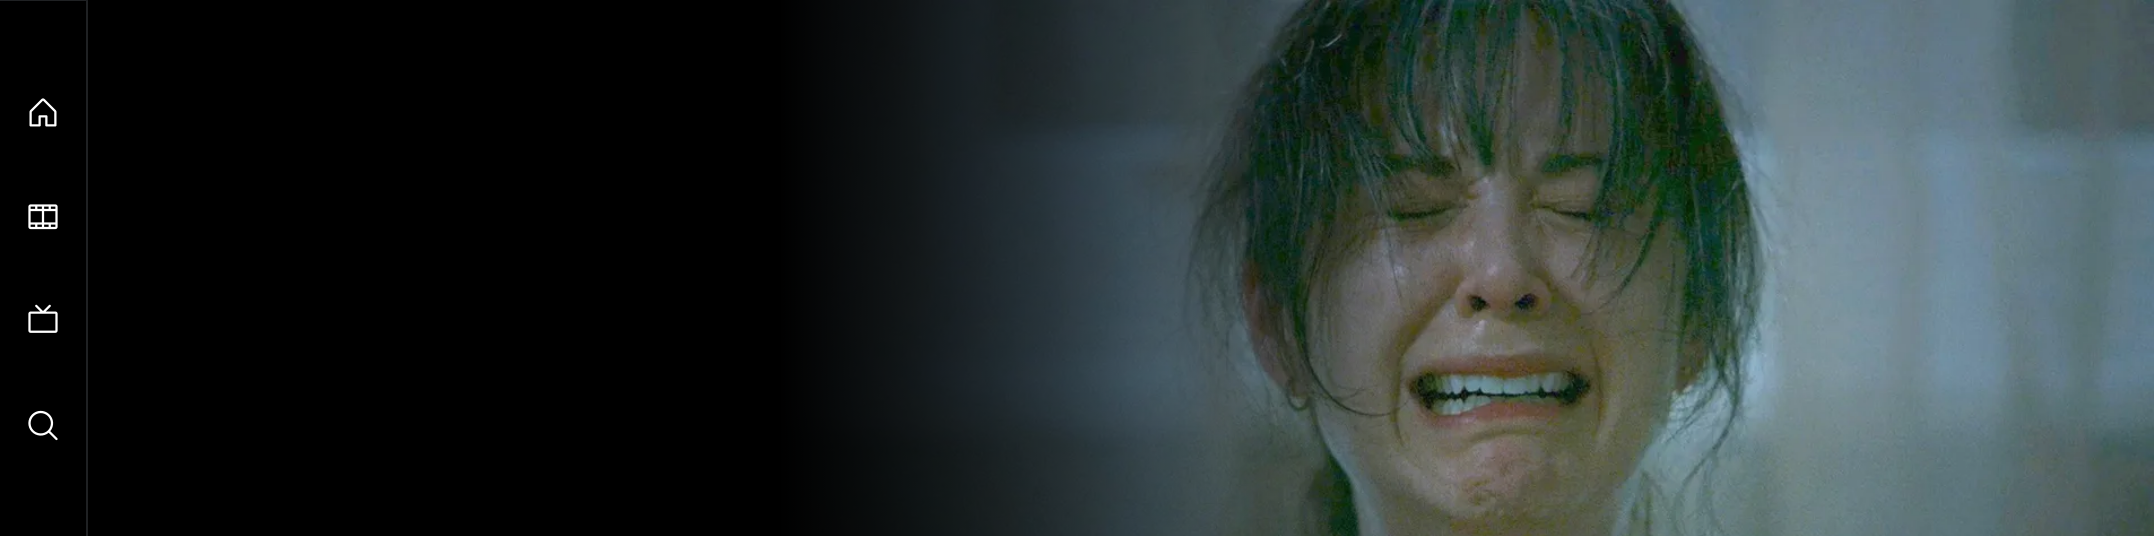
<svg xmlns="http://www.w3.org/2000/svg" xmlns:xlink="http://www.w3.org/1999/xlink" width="2154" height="536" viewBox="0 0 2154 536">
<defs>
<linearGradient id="g1" gradientUnits="userSpaceOnUse" x1="88" y1="373" x2="1466" y2="372"><stop offset="0" stop-color="#000000"/><stop offset="0.5" stop-color="#000000"/><stop offset="1" stop-color="#000000" stop-opacity="0"/></linearGradient>
</defs>
<rect width="100%" height="100%" fill="#000000"/>
<path fill="#1f2123" d="M0 0H88L86 1H0Z"/>
<path fill="#9ca3af" fill-opacity="0.2" d="M88 0V536H86V1Z"/>
<image xlink:href="image0.png" x="29" y="98" width="28" height="29"/>
<image xlink:href="image1.png" x="28" y="204" width="30" height="26"/>
<image xlink:href="image2.png" x="28" y="304" width="30" height="29"/>
<image xlink:href="image3.png" x="28" y="410" width="30" height="31"/>
<image xlink:href="image4.png" x="781" y="0" width="1373" height="536"/>
<rect fill="url(#g1)" x="781" y="0" width="670" height="536"/>
</svg>
